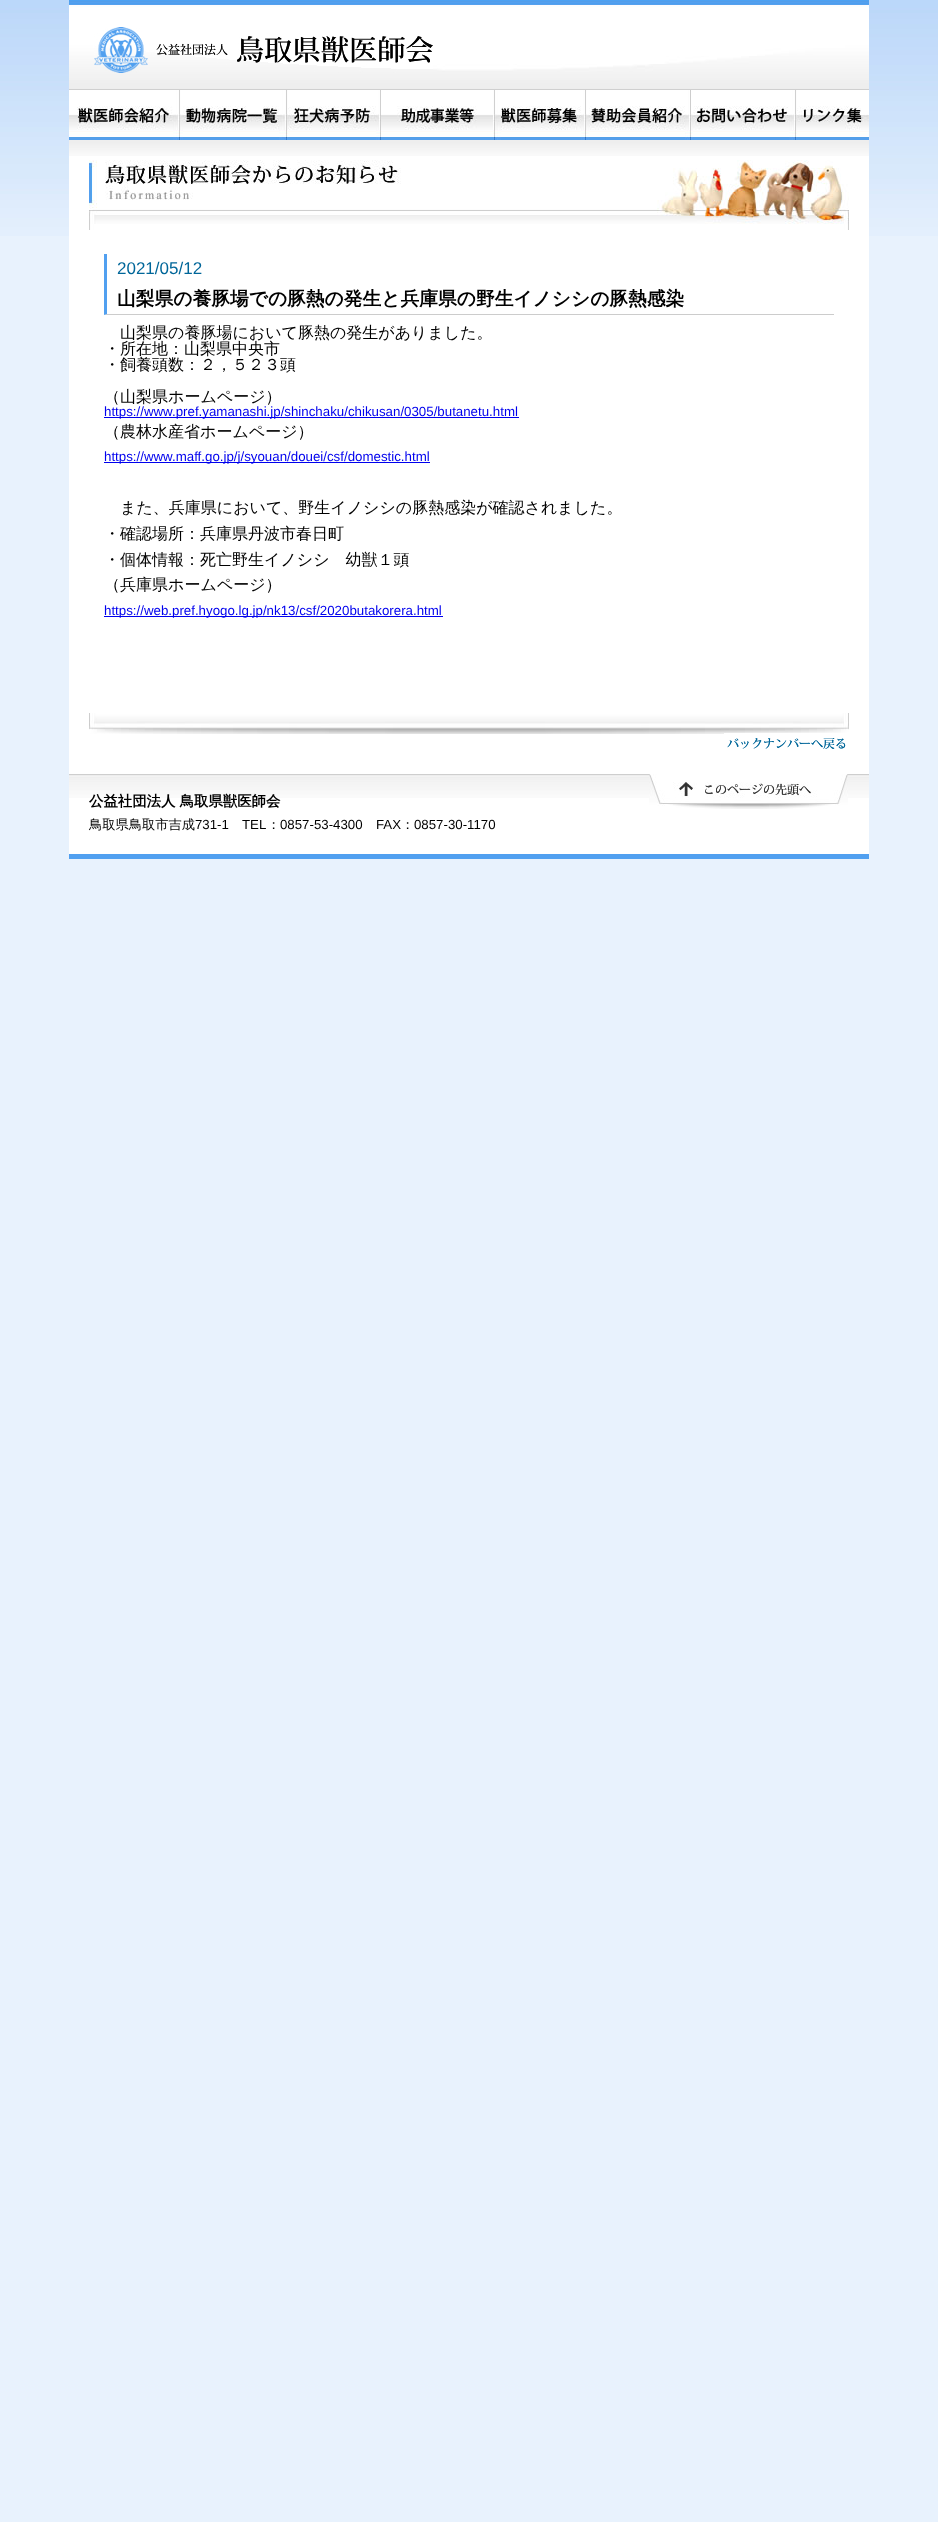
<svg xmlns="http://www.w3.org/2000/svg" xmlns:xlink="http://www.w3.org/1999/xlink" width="938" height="2522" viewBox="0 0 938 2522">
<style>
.cls-1{font:17px Liberation Sans;fill:#006699}
.cls-2{font:bold 18.75px WenQuanYi Zen Hei;fill:#000000}
.cls-3{font:500 16px WenQuanYi Zen Hei;fill:#000000}
.cls-4{font:13.3px Liberation Sans;fill:#0000ee}
.cls-5{font:bold 14.4px WenQuanYi Zen Hei;fill:#000000}
.cls-6{font:500 13.25px WenQuanYi Zen Hei;fill:#000000}
.cls-7{font:13.25px Liberation Sans;fill:#000000}
</style>
<rect width="100%" height="100%" fill="#e8f2fd"/>
<image xlink:href="image0.png" x="0" y="0" width="938" height="236"/>
<rect fill="#ffffff" x="69" y="156" width="800" height="698"/>
<image xlink:href="image1.png" x="69" y="0" width="800" height="90"/>
<image xlink:href="image2.png" x="94" y="27" width="339" height="46"/>
<image xlink:href="image3.png" x="69" y="90" width="110" height="50"/>
<image xlink:href="image4.png" x="179" y="90" width="106" height="50"/>
<image xlink:href="image5.png" x="285" y="90" width="95" height="50"/>
<image xlink:href="image6.png" x="380" y="90" width="114" height="50"/>
<image xlink:href="image7.png" x="494" y="90" width="92" height="50"/>
<image xlink:href="image8.png" x="586" y="90" width="104" height="50"/>
<image xlink:href="image9.png" x="690" y="90" width="105" height="50"/>
<image xlink:href="image10.png" x="795" y="90" width="74" height="50"/>
<image xlink:href="image11.png" x="69" y="140" width="800" height="16"/>
<image xlink:href="image12.png" x="89" y="160" width="760" height="70"/>
<path fill="#cccccc" d="M834 315H104L107 314H834Z"/>
<path fill="#51a0f0" d="M104 315V254H107V314Z"/>
<rect fill="#0000ee" x="104" y="417" width="415" height="1"/>
<rect fill="#0000ee" x="104" y="462" width="326" height="1"/>
<rect fill="#0000ee" x="104" y="616" width="339" height="1"/>
<image xlink:href="image13.png" x="89" y="713" width="760" height="21"/>
<image xlink:href="image14.png" x="724" y="733" width="122" height="16"/>
<image xlink:href="image15.png" x="69" y="774" width="800" height="24"/>
<rect fill="#51a0f0" x="69" y="854" width="800" height="5"/>
<image xlink:href="image16.png" x="649" y="774" width="199" height="35"/>
<text class="cls-1" x="117" y="274">2021/05/12</text>
<text class="cls-2" x="117" y="305">山梨県の養豚場での豚熱の発生と兵庫県の野生イノシシの豚熱感染</text>
<text class="cls-3" x="120" y="338">山梨県の養豚場において豚熱の発生がありました。</text>
<text class="cls-3"><tspan x="104" y="354">・所在地：山梨県中央市</tspan><tspan x="104" y="370">・飼養頭数：２，５２３頭</tspan></text>
<text class="cls-3" x="104" y="402">（山梨県ホームページ）</text>
<text class="cls-4" x="104" y="416">https://www.pref.yamanashi.jp/shinchaku/chikusan/0305/butanetu.html</text>
<text class="cls-3" x="104" y="437">（農林水産省ホームページ）</text>
<text class="cls-4" x="104" y="461">https://www.maff.go.jp/j/syouan/douei/csf/domestic.html</text>
<text class="cls-3" x="120" y="513">また、兵庫県において、野生イノシシの豚熱感染が確認されました。</text>
<text class="cls-3"><tspan x="104" y="539">・確認場所：兵庫県丹波市春日町</tspan><tspan x="104" y="565">・個体情報：死亡野生イノシシ　幼獣１頭</tspan><tspan x="104" y="590">（兵庫県ホームページ）</tspan></text>
<text class="cls-4" x="104" y="615">https://web.pref.hyogo.lg.jp/nk13/csf/2020butakorera.html</text>
<text class="cls-5" x="89" y="806">公益社団法人 鳥取県獣医師会</text>
<text class="cls-6" x="89" y="829">鳥取県鳥取市吉成</text>
<text class="cls-7" x="195" y="829">731-1</text>
<text class="cls-7" x="242" y="829">TEL</text>
<text class="cls-6" x="267" y="829">：</text>
<text class="cls-7" x="280" y="829">0857-53-4300</text>
<text class="cls-7" x="376" y="829">FAX</text>
<text class="cls-6" x="401" y="829">：</text>
<text class="cls-7" x="414" y="829">0857-30-1170</text>
</svg>
